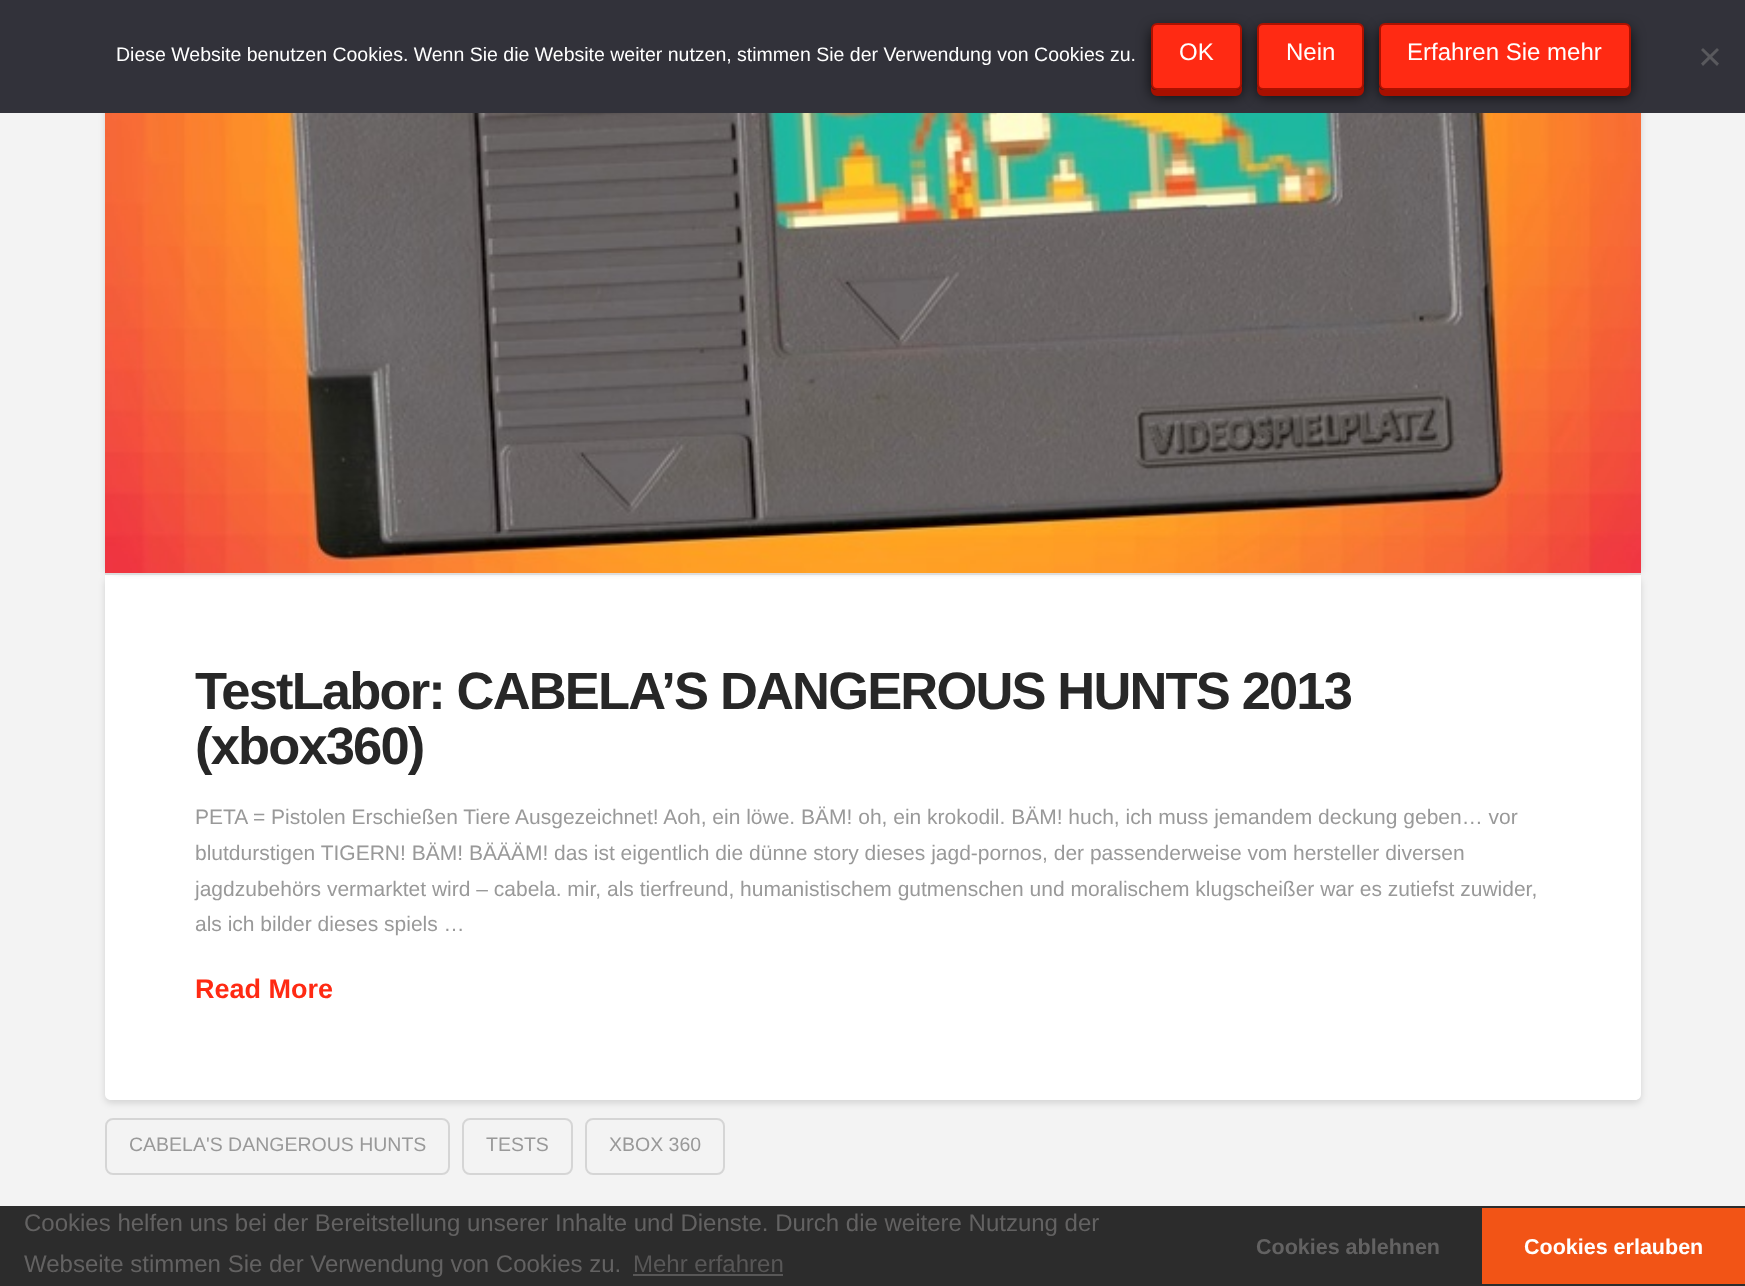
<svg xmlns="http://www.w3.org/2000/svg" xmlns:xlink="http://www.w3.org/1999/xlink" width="1745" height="1286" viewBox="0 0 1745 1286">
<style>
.cls-1{font:19.5px Liberation Sans;fill:#ffffff}
.cls-2{font:24px Liberation Sans;fill:#ffffff}
.cls-3{font:bold 52.5px Liberation Sans;letter-spacing:-1.85px;fill:#272727}
.cls-4{font:21px Liberation Sans;fill:#999999}
.cls-5{font:bold 27px Liberation Sans;fill:#ff2a13}
.cls-6{font:19.5px Liberation Sans;fill:#999999}
.cls-7{font:24px Liberation Sans;fill:#636262}
.cls-8{font:24px Liberation Sans;fill:#585757}
.cls-9{font:bold 21.5px Liberation Sans;fill:#636262}
.cls-10{font:bold 21.5px Liberation Sans;fill:#ffffff}
</style>
<rect width="100%" height="100%" fill="#f3f3f3"/>
<rect fill="#000000" fill-opacity="0.13" filter="blur(3.5px)" x="105" y="578" width="1536" height="525" rx="6"/>
<path fill="#ffffff" d="M105 575H1641V1094C1641 1097.5 1638.5 1100 1635 1100H111C107.5 1100 105 1097.5 105 1094Z"/>
<rect fill="#000000" fill-opacity="0.13" filter="blur(3px)" x="105" y="-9" width="1524" height="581"/>
<rect fill="#000000" fill-opacity="0.13" filter="blur(3px)" x="117" y="-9" width="1524" height="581"/>
<rect fill="#32323a" x="0" y="0" width="1745" height="113"/>
<image xlink:href="image0.png" x="105" y="113" width="1536" height="460"/>
<rect fill="#000000" fill-opacity="0.75" filter="blur(7px)" x="1151" y="29" width="91" height="67" rx="6"/>
<path fill="#a71000" d="M1151 86V90C1151 93 1154 96 1157 96H1236C1239 96 1242 93 1242 90V84C1242 87 1239 90 1236 90H1156C1154 90 1152 89 1151 86Z"/>
<rect fill="#ff2a13" stroke="#ac1100" stroke-width="2" x="1152" y="24" width="89" height="65" rx="5"/>
<rect fill="#000000" fill-opacity="0.75" filter="blur(7px)" x="1257" y="29" width="107" height="67" rx="6"/>
<path fill="#a71000" d="M1257 84V90C1257 93 1260 96 1263 96H1358C1361 96 1364 93 1364 90V35V33V84C1364 87 1361 90 1358 90H1263C1260 90 1257 87 1257 84Z"/>
<rect fill="#ff2a13" stroke="#ac1100" stroke-width="2" x="1258" y="24" width="105" height="65" rx="5"/>
<rect fill="#000000" fill-opacity="0.75" filter="blur(7px)" x="1379" y="29" width="252" height="67" rx="6"/>
<path fill="#a71000" d="M1379 86V90C1379 93 1382 96 1385 96H1625C1628 96 1631 93 1631 90V35L1630 33V84C1630 87 1628 90 1624 90H1384C1382 90 1380 89 1379 86Z"/>
<rect fill="#ff2a13" stroke="#ac1100" stroke-width="2" x="1380" y="24" width="250" height="65" rx="5"/>
<path fill="#59595d" d="M1717 48L1719 50L1703 66L1701 63.5Z"/>
<path fill="#59595d" d="M1701 50L1703 48L1719 63.5L1717 66Z"/>
<rect fill="#dddddd" x="105" y="573" width="1536" height="2"/>
<rect fill="none" stroke="#000000" stroke-opacity="0.12" stroke-width="2" x="106" y="1119" width="343" height="55" rx="7"/>
<rect fill="none" stroke="#000000" stroke-opacity="0.12" stroke-width="2" x="463" y="1119" width="109" height="55" rx="7"/>
<rect fill="none" stroke="#000000" stroke-opacity="0.12" stroke-width="2" x="586" y="1119" width="138" height="55" rx="7"/>
<rect fill="#2c2c2c" x="0" y="1206" width="1745" height="80"/>
<rect fill="#585757" x="633" y="1274" width="150" height="2"/>
<rect fill="#f25416" x="1482" y="1208" width="263" height="76"/>
<text class="cls-1" x="116" y="61">Diese Website benutzen Cookies. Wenn Sie die Website weiter nutzen, stimmen Sie der Verwendung von Cookies zu.</text>
<text class="cls-2" x="1179" y="60">OK</text>
<text class="cls-2" x="1286" y="60">Nein</text>
<text class="cls-2" x="1407" y="60">Erfahren Sie mehr</text>
<text class="cls-3"><tspan x="195" y="709">TestLabor: CABELA’S DANGEROUS HUNTS 2013</tspan><tspan x="195" y="764">(xbox360)</tspan></text>
<text class="cls-4"><tspan x="195" y="824">PETA = Pistolen Erschießen Tiere Ausgezeichnet! Aoh, ein löwe. BÄM! oh, ein krokodil. BÄM! huch, ich muss jemandem deckung geben… vor</tspan><tspan x="195" y="860">blutdurstigen TIGERN! BÄM! BÄÄÄM! das ist eigentlich die dünne story dieses jagd-pornos, der passenderweise vom hersteller diversen</tspan><tspan x="195" y="896">jagdzubehörs vermarktet wird – cabela. mir, als tierfreund, humanistischem gutmenschen und moralischem klugscheißer war es zutiefst zuwider,</tspan><tspan x="195" y="931">als ich bilder dieses spiels …</tspan></text>
<text class="cls-5" x="195" y="998">Read More</text>
<text class="cls-6" x="129" y="1151">CABELA'S DANGEROUS HUNTS</text>
<text class="cls-6" x="486" y="1151">TESTS</text>
<text class="cls-6" x="609" y="1151">XBOX 360</text>
<text class="cls-7"><tspan x="24" y="1231">Cookies helfen uns bei der Bereitstellung unserer Inhalte und Dienste. Durch die weitere Nutzung der</tspan><tspan x="24" y="1272">Webseite stimmen Sie der Verwendung von Cookies zu.</tspan></text>
<text class="cls-8" x="633" y="1272">Mehr erfahren</text>
<text class="cls-9" x="1256" y="1254">Cookies ablehnen</text>
<text class="cls-10" x="1524" y="1254">Cookies erlauben</text>
</svg>
